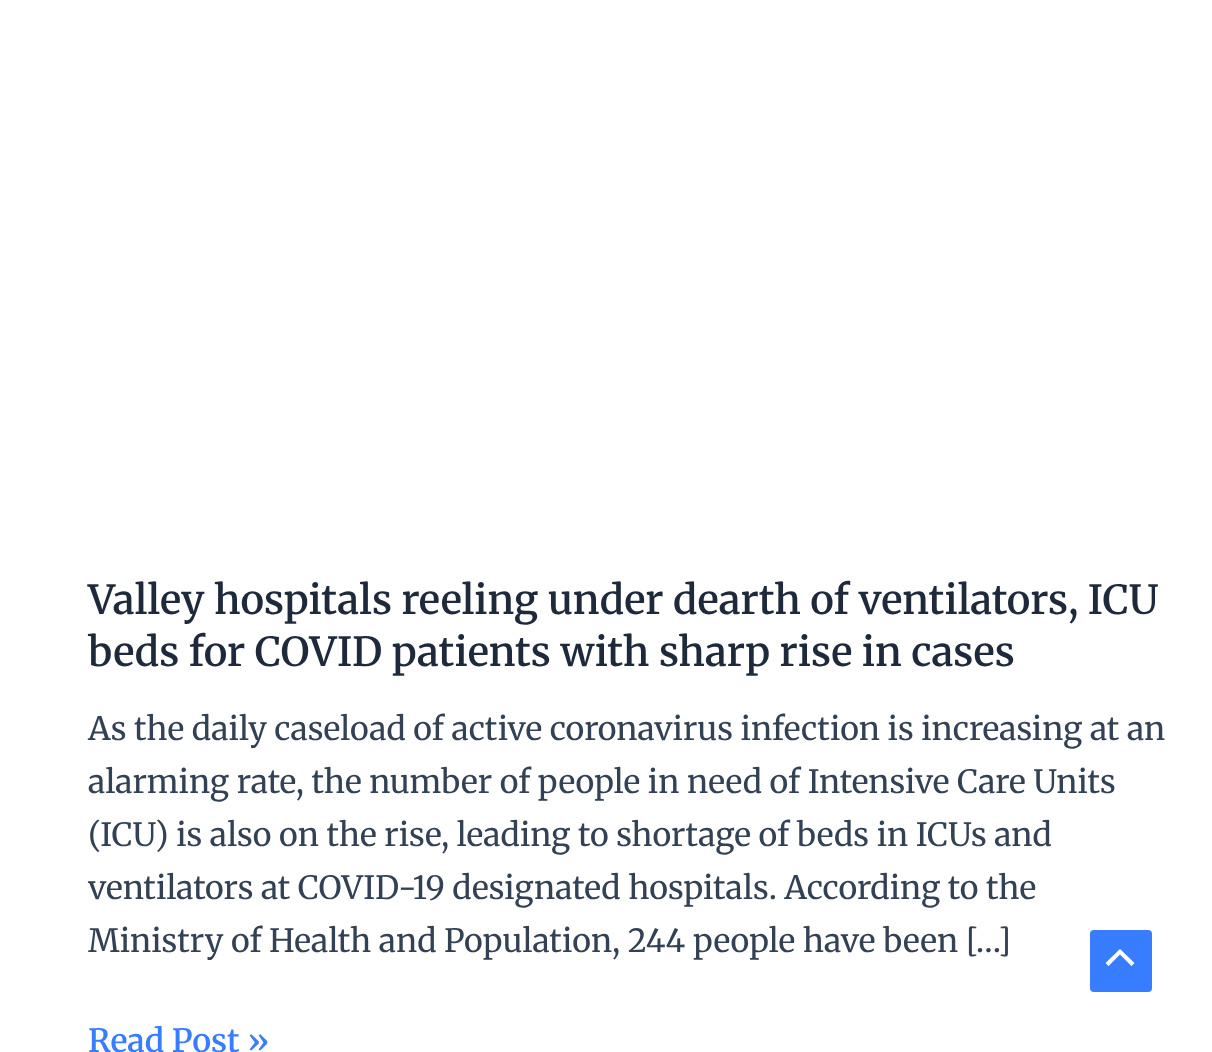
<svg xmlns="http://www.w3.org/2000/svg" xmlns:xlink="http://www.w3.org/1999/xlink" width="1212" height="1052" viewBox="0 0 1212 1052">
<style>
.cls-1{font:600 40px Merriweather;fill:#1e293b}
.cls-2{font:32px Merriweather;fill:#334155}
.cls-3{font:600 32px Merriweather;fill:#387dff}
</style>
<rect width="100%" height="100%" fill="#ffffff"/>
<rect fill="#387dff" x="1090" y="930" width="62" height="62" rx="4"/>
<path fill="#ffffff" d="M1134.5 963L1120 949L1105.5 963L1108.5 966L1120 954.5L1131.5 966Z"/>
<text class="cls-1"><tspan x="88" y="614">Valley hospitals reeling under dearth of ventilators, ICU</tspan><tspan x="88" y="666">beds for COVID patients with sharp rise in cases</tspan></text>
<text class="cls-2"><tspan x="88" y="740">As the daily caseload of active coronavirus infection is increasing at an</tspan><tspan x="88" y="793">alarming rate, the number of people in need of Intensive Care Units</tspan><tspan x="88" y="846">(ICU) is also on the rise, leading to shortage of beds in ICUs and</tspan><tspan x="88" y="899">ventilators at COVID-19 designated hospitals. According to the</tspan><tspan x="88" y="952">Ministry of Health and Population, 244 people have been […]</tspan></text>
<text class="cls-3" x="88" y="1052">Read Post »</text>
</svg>
